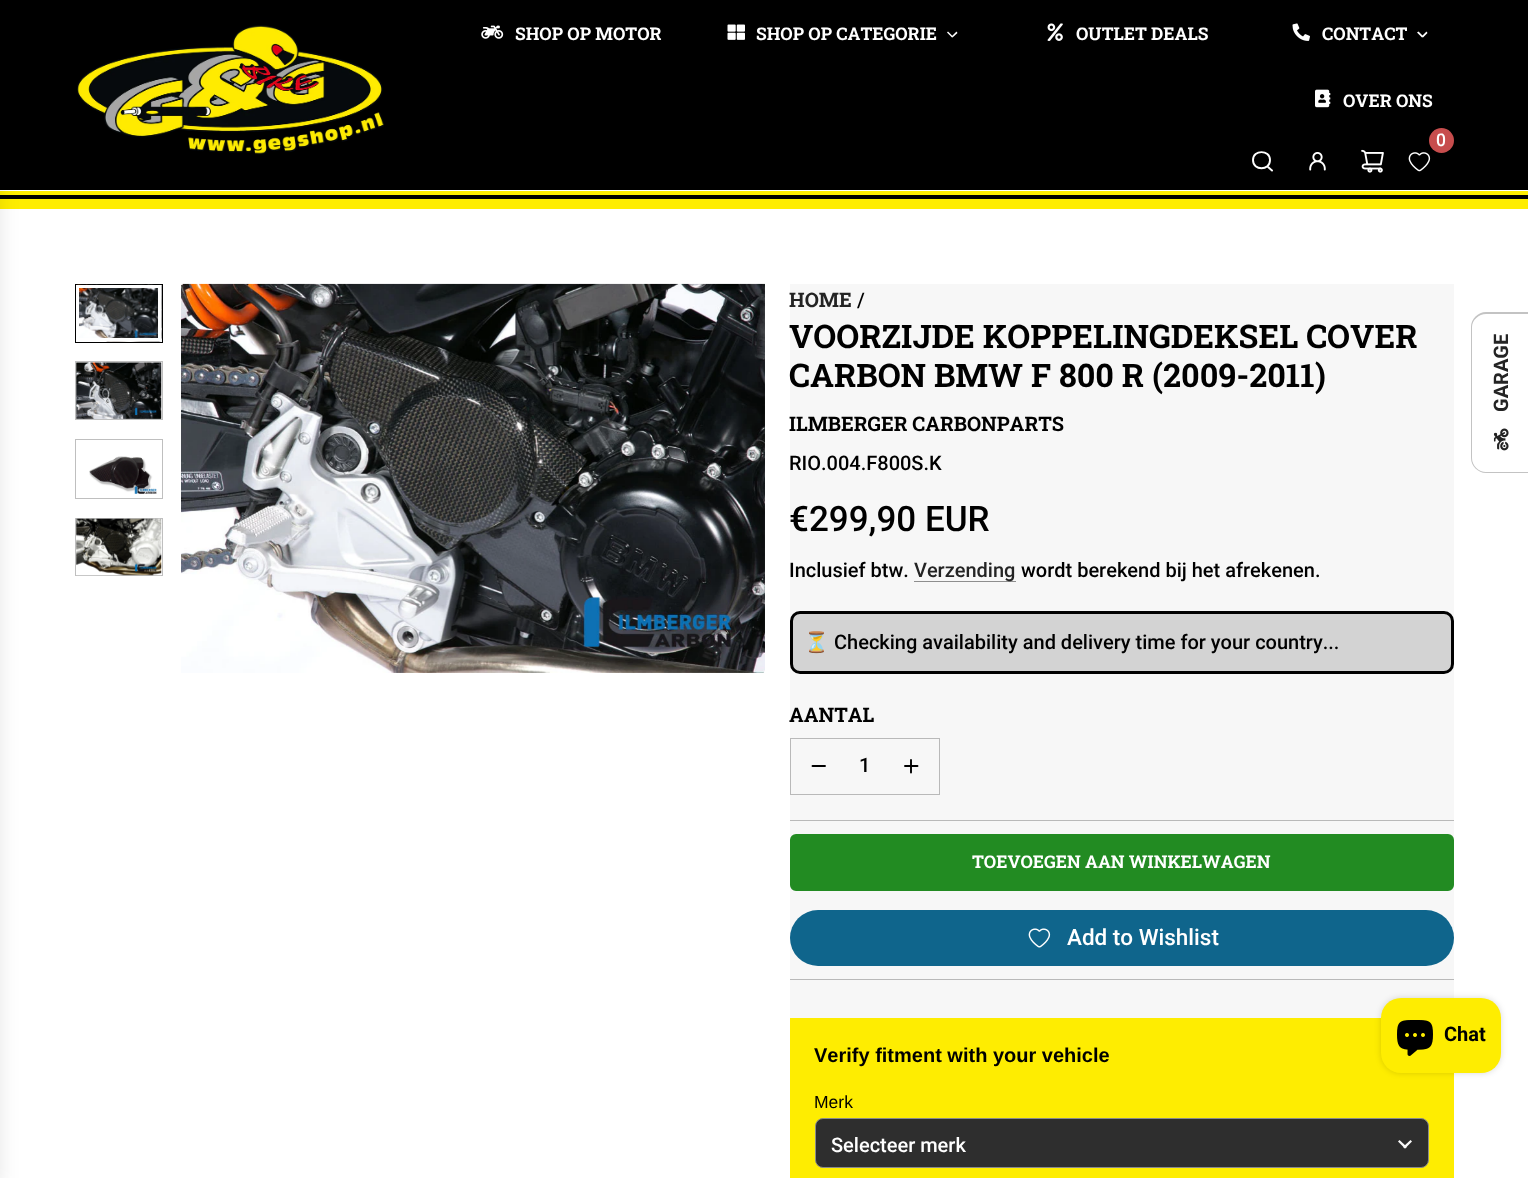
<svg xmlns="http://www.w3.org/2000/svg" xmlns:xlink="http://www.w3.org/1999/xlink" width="1528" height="1178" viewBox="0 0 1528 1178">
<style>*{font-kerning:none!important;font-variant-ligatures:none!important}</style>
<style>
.cls-1{font:bold 17.5px Roboto Slab;fill:#ffffff}
.cls-2{font:500 17.5px Roboto;fill:#ffffff}
.cls-3{font:bold 20px Roboto Slab;fill:#242424}
.cls-4{font:500 20px Roboto;fill:#000000}
.cls-5{font:bold 32.5px Roboto Slab;fill:#000000}
.cls-6{font:bold 20px Roboto Slab;fill:#000000}
.cls-7{font:500 35px Roboto;fill:#000000}
.cls-8{font:500 20px Roboto;fill:#242424}
.cls-9{font:20px Noto Color Emoji;fill:#000000}
.cls-10{font:500 22.5px Roboto;fill:#ffffff}
.cls-11{font:bold 20px Liberation Sans;fill:#000000}
.cls-12{font:17.5px Liberation Sans;fill:#000000}
.cls-13{font:500 20px Roboto;fill:#ffffff}
.cls-14{font:bold 20px Roboto;fill:#242424}
.cls-15{font:bold 20px Roboto;fill:#000000}
</style>
<rect width="100%" height="100%" fill="#ffffff"/>
<rect fill="#000000" x="0" y="0" width="1528" height="190"/>
<rect fill="#feed01" x="0" y="191" width="1528" height="18"/>
<rect fill="#000000" x="0" y="195" width="1528" height="4"/>
<rect fill="#000000" fill-opacity="0.1" filter="blur(9.5px)" x="-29" y="6" width="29" height="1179"/>
<image xlink:href="image0.png" x="77" y="25" width="307" height="130"/>
<image xlink:href="image1.png" x="481" y="25" width="23" height="14"/>
<image xlink:href="image2.png" x="727" y="24" width="18" height="16"/>
<path fill="#ffffff" d="M956.5 31.5L957.5 33L952.5 37.5L951.5 36.5Z"/>
<path fill="#ffffff" d="M948 31.5L953 36.5L952 37.5L947 32.5Z"/>
<image xlink:href="image3.png" x="1047" y="23" width="16" height="18"/>
<image xlink:href="image4.png" x="1292" y="23" width="18" height="18"/>
<path fill="#ffffff" d="M1426.5 31.5L1427.5 33L1423 37.5L1421.5 36.5Z"/>
<path fill="#ffffff" d="M1418.5 31.5L1423.5 36.5L1422 37.5L1417 32.5Z"/>
<image xlink:href="image5.png" x="1315" y="89" width="16" height="19"/>
<image xlink:href="image6.png" x="1408" y="152" width="23" height="20"/>
<circle fill="#c74d4d" cx="1441.5" cy="140.5" r="12.5"/>
<path fill="none" stroke="#ffffff" stroke-width="1.9" stroke-linecap="round" stroke-linejoin="round" d="M1267.5 166.5L1272 170.5M1253 160C1253 171 1270 171 1270 160C1270 149.5 1253 149.5 1253 160Z"/>
<image xlink:href="image7.png" x="1309" y="152" width="17" height="19"/>
<image xlink:href="image8.png" x="1361" y="149" width="23" height="24"/>
<rect fill="none" stroke="#000000" x="75.5" y="284.5" width="87" height="58"/>
<image xlink:href="image9.png" x="76" y="284" width="86" height="58"/>
<rect fill="none" stroke="#ffffff" stroke-width="3" x="77.5" y="286.5" width="82" height="53"/>
<rect fill="none" stroke="#bfbfbf" x="75.5" y="361.5" width="87" height="58"/>
<image xlink:href="image10.png" x="76" y="362" width="86" height="57"/>
<rect fill="none" stroke="#bfbfbf" x="75.5" y="439.5" width="87" height="59"/>
<image xlink:href="image11.png" x="89" y="456" width="68" height="38"/>
<rect fill="none" stroke="#bfbfbf" x="75.5" y="518.5" width="87" height="57"/>
<image xlink:href="image12.png" x="76" y="518" width="86" height="58"/>
<image xlink:href="image13.png" x="181" y="283" width="584" height="390"/>
<rect fill="#f7f7f7" x="790" y="284" width="664" height="734"/>
<rect fill="#8e8e8e" x="914" y="581" width="102" height="1"/>
<rect fill="#d3d3d3" stroke="#000000" stroke-width="3" x="791.5" y="612.5" width="661" height="60" rx="8.5"/>
<rect fill="none" stroke="#b9b9b9" x="790.5" y="738.5" width="149" height="56"/>
<path fill="none" stroke="#000000" stroke-width="1.9" stroke-linecap="round" stroke-linejoin="round" d="M812.5 766H825"/>
<path fill="none" stroke="#000000" stroke-width="1.9" stroke-linecap="round" stroke-linejoin="round" d="M905 766H911M911 766H917.5M911 766V760M911 766V772.5"/>
<rect fill="#b9b9b9" x="790" y="820" width="664" height="1"/>
<rect fill="#228b22" stroke="#228b22" stroke-width="3" x="791.5" y="835.5" width="661" height="54" rx="4.5"/>
<rect fill="#0f658c" x="790" y="910" width="664" height="56" rx="28"/>
<image xlink:href="image14.png" x="1028" y="928" width="23" height="20"/>
<rect fill="#b9b9b9" x="790" y="979" width="664" height="1"/>
<rect fill="#feed01" x="790" y="1018" width="664" height="160"/>
<rect fill="#2e2e2e" stroke="#8a8a8a" x="815.5" y="1118.5" width="613" height="49" rx="7.5"/>
<path fill="#fafafa" d="M1410.5 1140L1412 1141.5L1405 1148.5L1403 1147Z"/>
<path fill="#fafafa" d="M1399.5 1140L1407 1147L1405 1148.5L1398 1141.5Z"/>
<path fill="#c3c3c3" fill-rule="evenodd" d="M1471 458V327C1471 319 1478 312 1486 312H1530V473H1486C1478 473 1471 466 1471 458ZM1472 458V327C1472 320 1479 314 1486 314H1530V472H1486C1479 472 1472 466 1472 458Z"/>
<image xlink:href="image15.png" x="1493" y="428" width="16" height="23"/>
<rect fill="#000000" fill-opacity="0.15" filter="blur(3px)" x="1381" y="998" width="120" height="75" rx="20"/>
<rect fill="#feed01" x="1381" y="998" width="120" height="75" rx="20"/>
<image xlink:href="image16.png" x="1397" y="1020" width="36" height="36"/>
<text class="cls-1" x="515" y="40">SHOP OP MOTOR</text>
<text class="cls-1" x="756" y="40">SHOP OP CATEGORIE</text>
<text class="cls-1" x="1076" y="40">OUTLET DEALS</text>
<text class="cls-1" x="1322" y="40">CONTACT</text>
<text class="cls-1" x="1343" y="107">OVER ONS</text>
<text class="cls-2" x="1436" y="146">0</text>
<text class="cls-3" x="789" y="307">HOME</text>
<text class="cls-4" x="857" y="307">/</text>
<text class="cls-5"><tspan x="789" y="348">VOORZIJDE KOPPELINGDEKSEL COVER</tspan><tspan x="789" y="387">CARBON BMW F 800 R (2009-2011)</tspan></text>
<text class="cls-6" x="789" y="431">ILMBERGER CARBONPARTS</text>
<text class="cls-4" x="789" y="470">RIO.004.F800S.K</text>
<text class="cls-7" x="789" y="531">€299,90 EUR</text>
<text class="cls-4" x="789" y="577">Inclusief btw.</text>
<text class="cls-8" x="914" y="577">Verzending</text>
<text class="cls-4" x="1021" y="577">wordt berekend bij het afrekenen.</text>
<text class="cls-9" x="804" y="649">⏳</text>
<text class="cls-4" x="834" y="649">Checking availability and delivery time for your country...</text>
<text class="cls-6" x="789" y="722">AANTAL</text>
<text class="cls-4" x="859" y="772">1</text>
<text class="cls-1" x="972" y="868">TOEVOEGEN AAN WINKELWAGEN</text>
<text class="cls-10" x="1067" y="945">Add to Wishlist</text>
<text class="cls-11" x="814" y="1062">Verify fitment with your vehicle</text>
<text class="cls-12" x="814" y="1108">Merk</text>
<text class="cls-13" x="831" y="1152">Selecteer merk</text>
<text class="cls-14" x="1508" y="412" transform="rotate(-90 1508 412)">GARAGE</text>
<text class="cls-15" x="1444" y="1041">Chat</text>
</svg>
